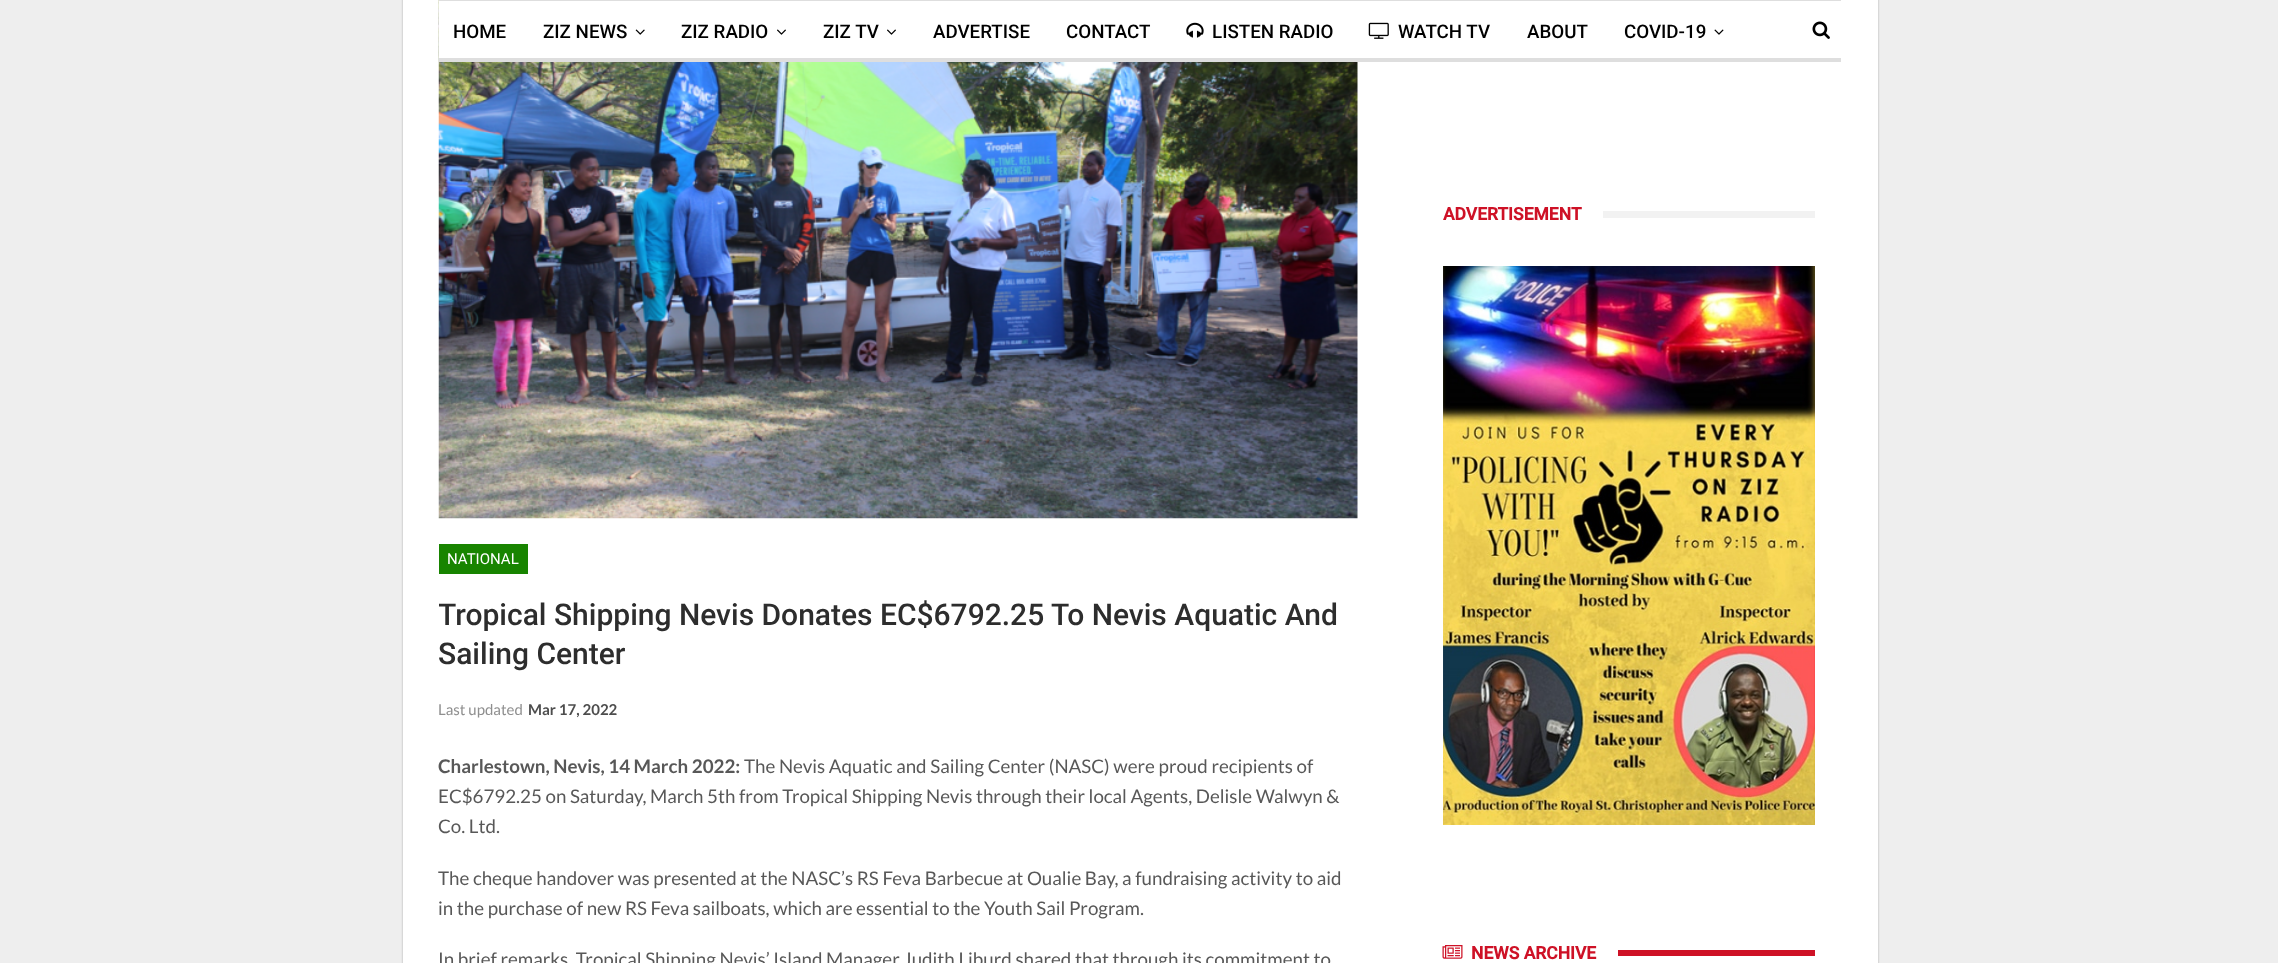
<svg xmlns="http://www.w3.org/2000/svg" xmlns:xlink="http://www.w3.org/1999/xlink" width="2278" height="963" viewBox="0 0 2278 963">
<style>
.cls-1{font:500 18.75px Roboto;fill:#000000}
.cls-2{font:15px Roboto;fill:#ffffff}
.cls-3{font:500 30px Roboto;fill:#2d2d2d}
.cls-4{font:15px Lato;fill:#8f8f8f}
.cls-5{font:bold 15px Lato;fill:#4d4d4d}
.cls-6{font:bold 18.75px Lato;fill:#585858}
.cls-7{font:18.75px Lato;fill:#585858}
.cls-8{font:bold 17.5px Roboto;fill:#ce1126}
</style>
<defs>
<clipPath id="clip1"><rect x="439" y="544" width="919" height="182"/></clipPath>
</defs>
<rect width="100%" height="100%" fill="#eeeeee"/>
<rect fill="#000000" fill-opacity="0.27" filter="blur(1px)" x="403" y="-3" width="1475" height="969"/>
<rect fill="#ffffff" x="403" y="0" width="1475" height="963"/>
<image xlink:href="image6.png" x="438" y="0" width="920" height="519"/>
<rect fill="#ffffff" x="439" y="1" width="919" height="57"/>
<rect fill="#dedede" x="439" y="0" width="1402" height="1"/>
<rect fill="#dedede" x="439" y="58" width="1402" height="4"/>
<image xlink:href="image0.png" x="635" y="29" width="10" height="6"/>
<image xlink:href="image1.png" x="777" y="29" width="9" height="6"/>
<image xlink:href="image1.png" x="887" y="29" width="9" height="6"/>
<image xlink:href="image2.png" x="1186" y="22" width="18" height="16"/>
<image xlink:href="image3.png" x="1368" y="22" width="21" height="17"/>
<image xlink:href="image4.png" x="1714" y="29" width="10" height="6"/>
<image xlink:href="image5.png" x="1812" y="21" width="18" height="18"/>
<rect fill="#188400" x="439" y="544" width="89" height="30"/>
<rect fill="#f2f2f2" x="1603" y="211" width="212" height="7"/>
<image xlink:href="image7.png" x="1443" y="266" width="372" height="559"/>
<image xlink:href="image8.png" x="1442" y="945" width="21" height="14"/>
<rect fill="#ce1126" x="1618" y="950" width="197" height="6"/>
<text class="cls-1" x="453" y="38">HOME</text>
<text class="cls-1" x="543" y="38">ZIZ NEWS</text>
<text class="cls-1" x="681" y="38">ZIZ RADIO</text>
<text class="cls-1" x="823" y="38">ZIZ TV</text>
<text class="cls-1" x="933" y="38">ADVERTISE</text>
<text class="cls-1" x="1066" y="38">CONTACT</text>
<text class="cls-1" x="1212" y="38">LISTEN RADIO</text>
<text class="cls-1" x="1398" y="38">WATCH TV</text>
<text class="cls-1" x="1527" y="38">ABOUT</text>
<text class="cls-1" x="1624" y="38">COVID-19</text>
<text class="cls-2" x="447" y="564">NATIONAL</text>
<g clip-path="url(#clip1)">
<text class="cls-3" x="438" y="625">Tropical Shipping Nevis Donates EC$6792.25 To Nevis Aquatic And</text>
</g>
<text class="cls-3" x="438" y="664">Sailing Center</text>
<text class="cls-4" x="438" y="715">Last updated</text>
<text class="cls-5" x="528" y="715">Mar 17, 2022</text>
<text class="cls-6" x="438" y="773">Charlestown, Nevis, 14 March 2022:</text>
<text class="cls-7" x="744" y="773">The Nevis Aquatic and Sailing Center (NASC) were proud recipients of</text>
<text class="cls-7"><tspan x="438" y="803">EC$6792.25 on Saturday, March 5th from Tropical Shipping Nevis through their local Agents, Delisle Walwyn &amp;</tspan><tspan x="438" y="833">Co. Ltd.</tspan></text>
<text class="cls-7"><tspan x="438" y="885">The cheque handover was presented at the NASC’s RS Feva Barbecue at Oualie Bay, a fundraising activity to aid</tspan><tspan x="438" y="915">in the purchase of new RS Feva sailboats, which are essential to the Youth Sail Program.</tspan></text>
<text class="cls-7" x="438" y="966">In brief remarks, Tropical Shipping Nevis’ Island Manager Judith Liburd shared that through its commitment to</text>
<text class="cls-8" x="1443" y="220">ADVERTISEMENT</text>
<text class="cls-8" x="1471" y="959">NEWS ARCHIVE</text>
</svg>
